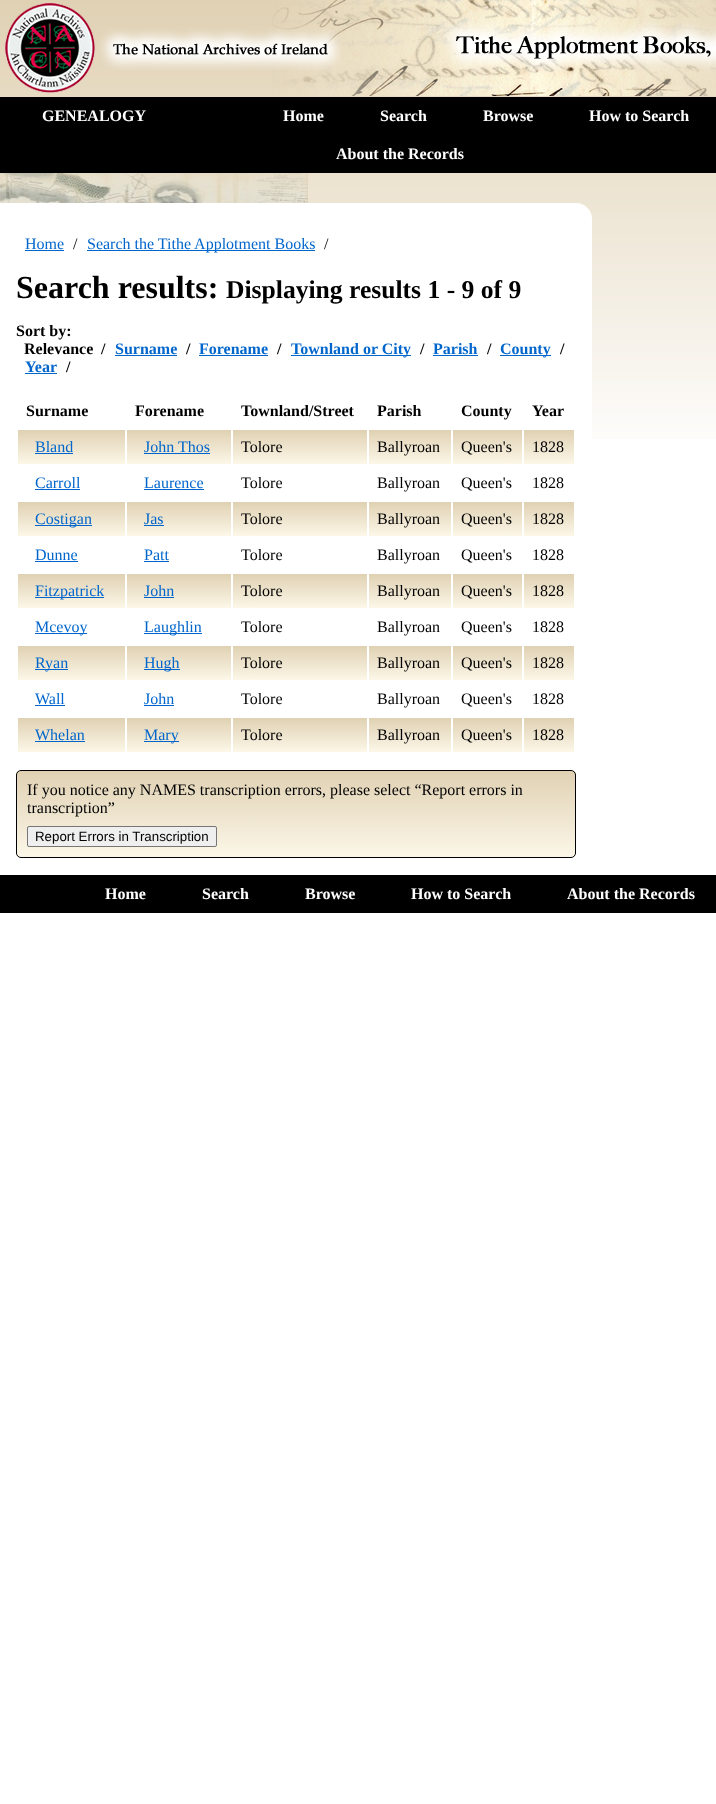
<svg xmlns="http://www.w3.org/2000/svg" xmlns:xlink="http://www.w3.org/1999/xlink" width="716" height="1804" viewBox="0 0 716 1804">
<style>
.cls-1{font:bold 16px Liberation Serif;fill:#ffffff}
.cls-2{font:16px Liberation Serif;fill:#0066cc}
.cls-3{font:16px Liberation Serif;fill:#000000}
.cls-4{font:bold 32px Liberation Serif;fill:#000000}
.cls-5{font:bold 25.6px Liberation Serif;fill:#000000}
.cls-6{font:bold 16px Liberation Serif;fill:#000000}
.cls-7{font:bold 16px Liberation Serif;fill:#0066cc}
.cls-8{font:13.3px Liberation Sans;fill:#000000}
</style>
<defs>
<linearGradient id="g1" gradientUnits="userSpaceOnUse" x1="72" y1="430" x2="72" y2="464"><stop offset="0" stop-color="#e0d1b3"/><stop offset="1" stop-color="#fcf7e8"/></linearGradient>
<linearGradient id="g2" gradientUnits="userSpaceOnUse" x1="179" y1="430" x2="179" y2="464"><stop offset="0" stop-color="#e0d1b3"/><stop offset="1" stop-color="#fcf7e8"/></linearGradient>
<linearGradient id="g3" gradientUnits="userSpaceOnUse" x1="300" y1="430" x2="300" y2="464"><stop offset="0" stop-color="#e0d1b3"/><stop offset="1" stop-color="#fcf7e8"/></linearGradient>
<linearGradient id="g4" gradientUnits="userSpaceOnUse" x1="410" y1="430" x2="410" y2="464"><stop offset="0" stop-color="#e0d1b3"/><stop offset="1" stop-color="#fcf7e8"/></linearGradient>
<linearGradient id="g5" gradientUnits="userSpaceOnUse" x1="488" y1="430" x2="488" y2="464"><stop offset="0" stop-color="#e0d1b3"/><stop offset="1" stop-color="#fcf7e8"/></linearGradient>
<linearGradient id="g6" gradientUnits="userSpaceOnUse" x1="549" y1="430" x2="549" y2="464"><stop offset="0" stop-color="#e0d1b3"/><stop offset="1" stop-color="#fcf7e8"/></linearGradient>
<linearGradient id="g7" gradientUnits="userSpaceOnUse" x1="72" y1="502" x2="72" y2="536"><stop offset="0" stop-color="#e0d1b3"/><stop offset="1" stop-color="#fcf7e8"/></linearGradient>
<linearGradient id="g8" gradientUnits="userSpaceOnUse" x1="179" y1="502" x2="179" y2="536"><stop offset="0" stop-color="#e0d1b3"/><stop offset="1" stop-color="#fcf7e8"/></linearGradient>
<linearGradient id="g9" gradientUnits="userSpaceOnUse" x1="300" y1="502" x2="300" y2="536"><stop offset="0" stop-color="#e0d1b3"/><stop offset="1" stop-color="#fcf7e8"/></linearGradient>
<linearGradient id="g10" gradientUnits="userSpaceOnUse" x1="410" y1="502" x2="410" y2="536"><stop offset="0" stop-color="#e0d1b3"/><stop offset="1" stop-color="#fcf7e8"/></linearGradient>
<linearGradient id="g11" gradientUnits="userSpaceOnUse" x1="488" y1="502" x2="488" y2="536"><stop offset="0" stop-color="#e0d1b3"/><stop offset="1" stop-color="#fcf7e8"/></linearGradient>
<linearGradient id="g12" gradientUnits="userSpaceOnUse" x1="549" y1="502" x2="549" y2="536"><stop offset="0" stop-color="#e0d1b3"/><stop offset="1" stop-color="#fcf7e8"/></linearGradient>
<linearGradient id="g13" gradientUnits="userSpaceOnUse" x1="72" y1="574" x2="72" y2="608"><stop offset="0" stop-color="#e0d1b3"/><stop offset="1" stop-color="#fcf7e8"/></linearGradient>
<linearGradient id="g14" gradientUnits="userSpaceOnUse" x1="179" y1="574" x2="179" y2="608"><stop offset="0" stop-color="#e0d1b3"/><stop offset="1" stop-color="#fcf7e8"/></linearGradient>
<linearGradient id="g15" gradientUnits="userSpaceOnUse" x1="300" y1="574" x2="300" y2="608"><stop offset="0" stop-color="#e0d1b3"/><stop offset="1" stop-color="#fcf7e8"/></linearGradient>
<linearGradient id="g16" gradientUnits="userSpaceOnUse" x1="410" y1="574" x2="410" y2="608"><stop offset="0" stop-color="#e0d1b3"/><stop offset="1" stop-color="#fcf7e8"/></linearGradient>
<linearGradient id="g17" gradientUnits="userSpaceOnUse" x1="488" y1="574" x2="488" y2="608"><stop offset="0" stop-color="#e0d1b3"/><stop offset="1" stop-color="#fcf7e8"/></linearGradient>
<linearGradient id="g18" gradientUnits="userSpaceOnUse" x1="549" y1="574" x2="549" y2="608"><stop offset="0" stop-color="#e0d1b3"/><stop offset="1" stop-color="#fcf7e8"/></linearGradient>
<linearGradient id="g19" gradientUnits="userSpaceOnUse" x1="72" y1="646" x2="72" y2="680"><stop offset="0" stop-color="#e0d1b3"/><stop offset="1" stop-color="#fcf7e8"/></linearGradient>
<linearGradient id="g20" gradientUnits="userSpaceOnUse" x1="179" y1="646" x2="179" y2="680"><stop offset="0" stop-color="#e0d1b3"/><stop offset="1" stop-color="#fcf7e8"/></linearGradient>
<linearGradient id="g21" gradientUnits="userSpaceOnUse" x1="300" y1="646" x2="300" y2="680"><stop offset="0" stop-color="#e0d1b3"/><stop offset="1" stop-color="#fcf7e8"/></linearGradient>
<linearGradient id="g22" gradientUnits="userSpaceOnUse" x1="410" y1="646" x2="410" y2="680"><stop offset="0" stop-color="#e0d1b3"/><stop offset="1" stop-color="#fcf7e8"/></linearGradient>
<linearGradient id="g23" gradientUnits="userSpaceOnUse" x1="488" y1="646" x2="488" y2="680"><stop offset="0" stop-color="#e0d1b3"/><stop offset="1" stop-color="#fcf7e8"/></linearGradient>
<linearGradient id="g24" gradientUnits="userSpaceOnUse" x1="549" y1="646" x2="549" y2="680"><stop offset="0" stop-color="#e0d1b3"/><stop offset="1" stop-color="#fcf7e8"/></linearGradient>
<linearGradient id="g25" gradientUnits="userSpaceOnUse" x1="72" y1="718" x2="72" y2="752"><stop offset="0" stop-color="#e0d1b3"/><stop offset="1" stop-color="#fcf7e8"/></linearGradient>
<linearGradient id="g26" gradientUnits="userSpaceOnUse" x1="179" y1="718" x2="179" y2="752"><stop offset="0" stop-color="#e0d1b3"/><stop offset="1" stop-color="#fcf7e8"/></linearGradient>
<linearGradient id="g27" gradientUnits="userSpaceOnUse" x1="300" y1="718" x2="300" y2="752"><stop offset="0" stop-color="#e0d1b3"/><stop offset="1" stop-color="#fcf7e8"/></linearGradient>
<linearGradient id="g28" gradientUnits="userSpaceOnUse" x1="410" y1="718" x2="410" y2="752"><stop offset="0" stop-color="#e0d1b3"/><stop offset="1" stop-color="#fcf7e8"/></linearGradient>
<linearGradient id="g29" gradientUnits="userSpaceOnUse" x1="488" y1="718" x2="488" y2="752"><stop offset="0" stop-color="#e0d1b3"/><stop offset="1" stop-color="#fcf7e8"/></linearGradient>
<linearGradient id="g30" gradientUnits="userSpaceOnUse" x1="549" y1="718" x2="549" y2="752"><stop offset="0" stop-color="#e0d1b3"/><stop offset="1" stop-color="#fcf7e8"/></linearGradient>
<clipPath id="clip1"><rect x="16" y="770" width="560" height="88" rx="5"/></clipPath>
<linearGradient id="g31" gradientUnits="userSpaceOnUse" x1="296" y1="771" x2="296" y2="857"><stop offset="0" stop-color="#e0d1b3"/><stop offset="1" stop-color="#fcf7e8"/></linearGradient>
</defs>
<rect width="100%" height="100%" fill="#ffffff"/>
<image xlink:href="image0.png" x="0" y="0" width="716" height="439"/>
<image xlink:href="image1.png" x="272" y="0" width="444" height="96"/>
<image xlink:href="image2.png" x="5" y="3" width="90" height="90"/>
<image xlink:href="image3.png" x="99" y="28" width="243" height="42"/>
<image xlink:href="image4.png" x="444" y="22" width="272" height="51"/>
<rect fill="#000000" x="0" y="97" width="716" height="76"/>
<image xlink:href="image5.png" x="0" y="173" width="308" height="30"/>
<path fill="#ffffff" d="M0 203H576C585 203 592 210 592 219V874H0Z"/>
<rect fill="#0066cc" x="25" y="250" width="39" height="1"/>
<rect fill="#0066cc" x="87" y="250" width="228" height="1"/>
<rect fill="#0066cc" x="115" y="355" width="62" height="1"/>
<rect fill="#0066cc" x="199" y="355" width="69" height="1"/>
<rect fill="#0066cc" x="291" y="355" width="120" height="1"/>
<rect fill="#0066cc" x="433" y="355" width="45" height="1"/>
<rect fill="#0066cc" x="500" y="355" width="51" height="1"/>
<rect fill="#0066cc" x="25" y="373" width="32" height="1"/>
<rect fill="url(#g1)" x="18" y="430" width="107" height="34"/>
<rect fill="#0066cc" x="35" y="453" width="38" height="1"/>
<rect fill="url(#g2)" x="127" y="430" width="104" height="34"/>
<rect fill="#0066cc" x="144" y="453" width="66" height="1"/>
<rect fill="url(#g3)" x="233" y="430" width="134" height="34"/>
<rect fill="url(#g4)" x="369" y="430" width="82" height="34"/>
<rect fill="url(#g5)" x="453" y="430" width="69" height="34"/>
<rect fill="url(#g6)" x="524" y="430" width="50" height="34"/>
<rect fill="#0066cc" x="35" y="489" width="45" height="1"/>
<rect fill="#0066cc" x="144" y="489" width="60" height="1"/>
<rect fill="url(#g7)" x="18" y="502" width="107" height="34"/>
<rect fill="#0066cc" x="35" y="525" width="57" height="1"/>
<rect fill="url(#g8)" x="127" y="502" width="104" height="34"/>
<rect fill="#0066cc" x="144" y="525" width="20" height="1"/>
<rect fill="url(#g9)" x="233" y="502" width="134" height="34"/>
<rect fill="url(#g10)" x="369" y="502" width="82" height="34"/>
<rect fill="url(#g11)" x="453" y="502" width="69" height="34"/>
<rect fill="url(#g12)" x="524" y="502" width="50" height="34"/>
<rect fill="#0066cc" x="35" y="561" width="43" height="1"/>
<rect fill="#0066cc" x="144" y="561" width="25" height="1"/>
<rect fill="url(#g13)" x="18" y="574" width="107" height="34"/>
<rect fill="#0066cc" x="35" y="597" width="69" height="1"/>
<rect fill="url(#g14)" x="127" y="574" width="104" height="34"/>
<rect fill="#0066cc" x="144" y="597" width="30" height="1"/>
<rect fill="url(#g15)" x="233" y="574" width="134" height="34"/>
<rect fill="url(#g16)" x="369" y="574" width="82" height="34"/>
<rect fill="url(#g17)" x="453" y="574" width="69" height="34"/>
<rect fill="url(#g18)" x="524" y="574" width="50" height="34"/>
<rect fill="#0066cc" x="35" y="633" width="52" height="1"/>
<rect fill="#0066cc" x="144" y="633" width="58" height="1"/>
<rect fill="url(#g19)" x="18" y="646" width="107" height="34"/>
<rect fill="#0066cc" x="35" y="669" width="33" height="1"/>
<rect fill="url(#g20)" x="127" y="646" width="104" height="34"/>
<rect fill="#0066cc" x="144" y="669" width="36" height="1"/>
<rect fill="url(#g21)" x="233" y="646" width="134" height="34"/>
<rect fill="url(#g22)" x="369" y="646" width="82" height="34"/>
<rect fill="url(#g23)" x="453" y="646" width="69" height="34"/>
<rect fill="url(#g24)" x="524" y="646" width="50" height="34"/>
<rect fill="#0066cc" x="35" y="705" width="30" height="1"/>
<rect fill="#0066cc" x="144" y="705" width="30" height="1"/>
<rect fill="url(#g25)" x="18" y="718" width="107" height="34"/>
<rect fill="#0066cc" x="35" y="741" width="50" height="1"/>
<rect fill="url(#g26)" x="127" y="718" width="104" height="34"/>
<rect fill="#0066cc" x="144" y="741" width="35" height="1"/>
<rect fill="url(#g27)" x="233" y="718" width="134" height="34"/>
<rect fill="url(#g28)" x="369" y="718" width="82" height="34"/>
<rect fill="url(#g29)" x="453" y="718" width="69" height="34"/>
<rect fill="url(#g30)" x="524" y="718" width="50" height="34"/>
<g clip-path="url(#clip1)">
<rect fill="url(#g31)" x="16" y="771" width="560" height="86"/>
</g>
<rect fill="none" stroke="#000000" x="16.5" y="770.5" width="559" height="87" rx="4.5"/>
<rect fill="#efefef" stroke="#767676" x="27.5" y="826.5" width="189" height="20" rx="1.5"/>
<rect fill="#000000" x="0" y="875" width="716" height="38"/>
<text class="cls-1" x="42" y="121">GENEALOGY</text>
<text class="cls-1" x="283" y="121">Home</text>
<text class="cls-1" x="380" y="121">Search</text>
<text class="cls-1" x="483" y="121">Browse</text>
<text class="cls-1" x="589" y="121">How to Search</text>
<text class="cls-1" x="336" y="159">About the Records</text>
<text class="cls-2" x="25" y="249">Home</text>
<text class="cls-3" x="73" y="249">/</text>
<text class="cls-2" x="87" y="249">Search the Tithe Applotment Books</text>
<text class="cls-3" x="324" y="249">/</text>
<text class="cls-4" x="16" y="298">Search results:</text>
<text class="cls-5" x="226" y="298">Displaying results 1 - 9 of 9</text>
<text class="cls-6" x="16" y="336">Sort by:</text>
<text class="cls-6" x="24" y="354">Relevance</text>
<text class="cls-6" x="101" y="354">/</text>
<text class="cls-7" x="115" y="354">Surname</text>
<text class="cls-6" x="186" y="354">/</text>
<text class="cls-7" x="199" y="354">Forename</text>
<text class="cls-6" x="277" y="354">/</text>
<text class="cls-7" x="291" y="354">Townland or City</text>
<text class="cls-6" x="420" y="354">/</text>
<text class="cls-7" x="433" y="354">Parish</text>
<text class="cls-6" x="487" y="354">/</text>
<text class="cls-7" x="500" y="354">County</text>
<text class="cls-6" x="560" y="354">/</text>
<text class="cls-7" x="25" y="372">Year</text>
<text class="cls-6" x="66" y="372">/</text>
<text class="cls-6" x="26" y="416">Surname</text>
<text class="cls-6" x="135" y="416">Forename</text>
<text class="cls-6" x="241" y="416">Townland/Street</text>
<text class="cls-6" x="377" y="416">Parish</text>
<text class="cls-6" x="461" y="416">County</text>
<text class="cls-6" x="532" y="416">Year</text>
<text class="cls-2" x="35" y="452">Bland</text>
<text class="cls-2" x="144" y="452">John Thos</text>
<text class="cls-3" x="241" y="452">Tolore</text>
<text class="cls-3" x="377" y="452">Ballyroan</text>
<text class="cls-3" x="461" y="452">Queen's</text>
<text class="cls-3" x="532" y="452">1828</text>
<text class="cls-2" x="35" y="488">Carroll</text>
<text class="cls-2" x="144" y="488">Laurence</text>
<text class="cls-3" x="241" y="488">Tolore</text>
<text class="cls-3" x="377" y="488">Ballyroan</text>
<text class="cls-3" x="461" y="488">Queen's</text>
<text class="cls-3" x="532" y="488">1828</text>
<text class="cls-2" x="35" y="524">Costigan</text>
<text class="cls-2" x="144" y="524">Jas</text>
<text class="cls-3" x="241" y="524">Tolore</text>
<text class="cls-3" x="377" y="524">Ballyroan</text>
<text class="cls-3" x="461" y="524">Queen's</text>
<text class="cls-3" x="532" y="524">1828</text>
<text class="cls-2" x="35" y="560">Dunne</text>
<text class="cls-2" x="144" y="560">Patt</text>
<text class="cls-3" x="241" y="560">Tolore</text>
<text class="cls-3" x="377" y="560">Ballyroan</text>
<text class="cls-3" x="461" y="560">Queen's</text>
<text class="cls-3" x="532" y="560">1828</text>
<text class="cls-2" x="35" y="596">Fitzpatrick</text>
<text class="cls-2" x="144" y="596">John</text>
<text class="cls-3" x="241" y="596">Tolore</text>
<text class="cls-3" x="377" y="596">Ballyroan</text>
<text class="cls-3" x="461" y="596">Queen's</text>
<text class="cls-3" x="532" y="596">1828</text>
<text class="cls-2" x="35" y="632">Mcevoy</text>
<text class="cls-2" x="144" y="632">Laughlin</text>
<text class="cls-3" x="241" y="632">Tolore</text>
<text class="cls-3" x="377" y="632">Ballyroan</text>
<text class="cls-3" x="461" y="632">Queen's</text>
<text class="cls-3" x="532" y="632">1828</text>
<text class="cls-2" x="35" y="668">Ryan</text>
<text class="cls-2" x="144" y="668">Hugh</text>
<text class="cls-3" x="241" y="668">Tolore</text>
<text class="cls-3" x="377" y="668">Ballyroan</text>
<text class="cls-3" x="461" y="668">Queen's</text>
<text class="cls-3" x="532" y="668">1828</text>
<text class="cls-2" x="35" y="704">Wall</text>
<text class="cls-2" x="144" y="704">John</text>
<text class="cls-3" x="241" y="704">Tolore</text>
<text class="cls-3" x="377" y="704">Ballyroan</text>
<text class="cls-3" x="461" y="704">Queen's</text>
<text class="cls-3" x="532" y="704">1828</text>
<text class="cls-2" x="35" y="740">Whelan</text>
<text class="cls-2" x="144" y="740">Mary</text>
<text class="cls-3" x="241" y="740">Tolore</text>
<text class="cls-3" x="377" y="740">Ballyroan</text>
<text class="cls-3" x="461" y="740">Queen's</text>
<text class="cls-3" x="532" y="740">1828</text>
<text class="cls-3"><tspan x="27" y="795">If you notice any NAMES transcription errors, please select “Report errors in</tspan><tspan x="27" y="813">transcription”</tspan></text>
<text class="cls-8" x="35" y="841">Report Errors in Transcription</text>
<text class="cls-1" x="105" y="899">Home</text>
<text class="cls-1" x="202" y="899">Search</text>
<text class="cls-1" x="305" y="899">Browse</text>
<text class="cls-1" x="411" y="899">How to Search</text>
<text class="cls-1" x="567" y="899">About the Records</text>
</svg>
